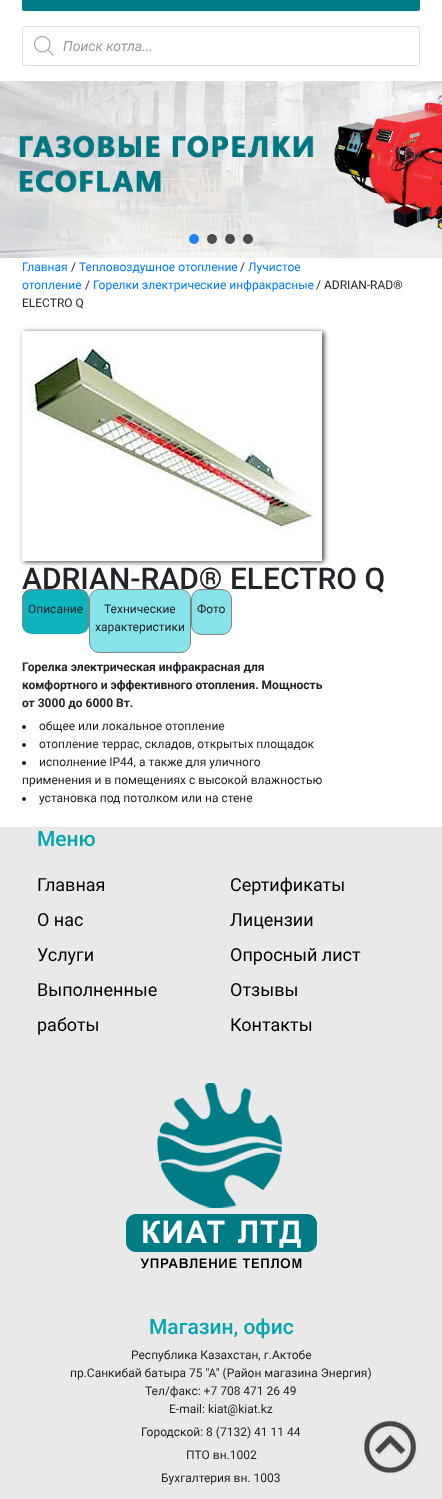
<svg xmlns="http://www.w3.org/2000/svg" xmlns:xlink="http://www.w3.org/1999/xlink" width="442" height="1499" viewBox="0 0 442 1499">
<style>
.cls-1{font:italic 14px Roboto;fill:#999999}
.cls-2{font:12px Roboto;fill:#007bff}
.cls-3{font:12px Roboto;fill:#212529}
.cls-4{font:500 30px Roboto;fill:#212529}
.cls-5{font:bold 12px Roboto;fill:#212529}
.cls-6{font:500 21px Roboto;fill:#03a6ad}
.cls-7{font:18px Roboto;fill:#000000}
</style>
<defs>
<clipPath id="clip1"><path d="M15 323H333V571H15ZM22 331H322V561H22Z" clip-rule="evenodd"/></clipPath>
</defs>
<rect width="100%" height="100%" fill="#ffffff"/>
<rect fill="#007c87" x="22" y="-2" width="398" height="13" rx="2"/>
<rect fill="none" stroke="#dddddd" x="22.5" y="26.5" width="397" height="39" rx="2.5"/>
<image xlink:href="image0.png" x="34" y="36" width="20" height="20"/>
<image xlink:href="image1.png" x="0" y="81" width="442" height="177"/>
<circle fill="#1d81f9" cx="194" cy="239" r="5"/>
<circle fill="#000000" fill-opacity="0.67" cx="212" cy="239" r="5"/>
<circle fill="#000000" fill-opacity="0.67" cx="230" cy="239" r="5"/>
<circle fill="#000000" fill-opacity="0.67" cx="248" cy="239" r="5"/>
<g clip-path="url(#clip1)">
<rect fill="#000000" fill-opacity="0.75" filter="blur(2.5px)" x="24" y="332" width="300" height="230"/>
</g>
<image xlink:href="image2.png" x="27" y="347" width="289" height="192"/>
<circle fill="#212529" cx="24" cy="727" r="2"/>
<circle fill="#212529" cx="24" cy="745" r="2"/>
<circle fill="#212529" cx="24" cy="763" r="2"/>
<circle fill="#212529" cx="24" cy="799" r="2"/>
<rect fill="#e9e9e9" x="0" y="827" width="442" height="672"/>
<image xlink:href="image3.png" x="126" y="1083" width="191" height="186"/>
<image xlink:href="image4.png" x="362" y="1419" width="56" height="56"/>
<text class="cls-1" x="63" y="51">Поиск котла...</text>
<text class="cls-2" x="22" y="271">Главная</text>
<text class="cls-3" x="71" y="271">/</text>
<text class="cls-2" x="79" y="271">Тепловоздушное отопление</text>
<text class="cls-3" x="240" y="271">/</text>
<text class="cls-2" x="248" y="271">Лучистое</text>
<text class="cls-2" x="22" y="289">отопление</text>
<text class="cls-3" x="85" y="289">/</text>
<text class="cls-2" x="93" y="289">Горелки электрические инфракрасные</text>
<text class="cls-3" x="316" y="289">/ ADRIAN-RAD®</text>
<text class="cls-3" x="22" y="307">ELECTRO Q</text>
<text class="cls-4" x="22" y="589">ADRIAN-RAD® ELECTRO Q</text>
<rect fill="#0cb4be" x="22" y="589" width="67" height="45" rx="10"/>
<path fill="#848484" fill-rule="evenodd" d="M32 589H79C85 589 89 593 89 599V624C89 630 85 634 79 634H32C26 634 22 630 22 624V599C22 593 26 589 32 589ZM32 590H79C84 590 88 594 88 599V624C88 630 84 634 79 634H32C27 634 23 630 23 624V599C23 594 27 590 32 590Z"/>
<text class="cls-3" x="28" y="613">Описание</text>
<rect fill="#86e3e9" stroke="#848484" x="89.5" y="589.5" width="101" height="63" rx="9.5"/>
<text class="cls-3" x="104" y="613">Технические</text>
<text class="cls-3" x="95" y="631">характеристики</text>
<rect fill="#86e3e9" stroke="#848484" x="191.5" y="589.5" width="40" height="45" rx="9.5"/>
<text class="cls-3" x="197" y="613">Фото</text>
<text class="cls-5"><tspan x="22" y="671">Горелка электрическая инфракрасная для</tspan><tspan x="22" y="689">комфортного и эффективного отопления. Мощность</tspan><tspan x="22" y="707">от 3000 до 6000 Вт.</tspan></text>
<text class="cls-3"><tspan x="39" y="730">общее или локальное отопление</tspan><tspan x="39" y="748">отопление террас, складов, открытых площадок</tspan><tspan x="39" y="766">исполнение IP44, а также для уличного</tspan></text>
<text class="cls-3" x="22" y="784">применения и в помещениях с высокой влажностью</text>
<text class="cls-3" x="39" y="802">установка под потолком или на стене</text>
<text class="cls-6" x="37" y="846">Меню</text>
<text class="cls-7" x="37" y="891">Главная</text>
<text class="cls-7" x="230" y="891">Сертификаты</text>
<text class="cls-7" x="37" y="926">О нас</text>
<text class="cls-7" x="230" y="926">Лицензии</text>
<text class="cls-7" x="37" y="961">Услуги</text>
<text class="cls-7" x="230" y="961">Опросный лист</text>
<text class="cls-7"><tspan x="37" y="996">Выполненные</tspan><tspan x="37" y="1031">работы</tspan></text>
<text class="cls-7"><tspan x="230" y="996">Отзывы</tspan><tspan x="230" y="1031">Контакты</tspan></text>
<text class="cls-6" x="149" y="1334">Магазин, офис</text>
<text class="cls-3" x="131" y="1359">Республика Казахстан, г.Актобе</text>
<text class="cls-3" x="70" y="1377">пр.Санкибай батыра 75 "А" (Район магазина Энергия)</text>
<text class="cls-3" x="145" y="1395">Тел/факс: +7 708 471 26 49</text>
<text class="cls-3" x="169" y="1413">E-mail: kiat@kiat.kz</text>
<text class="cls-3" x="141" y="1436">Городской: 8 (7132) 41 11 44</text>
<text class="cls-3" x="186" y="1459">ПТО вн.1002</text>
<text class="cls-3" x="161" y="1482">Бухгалтерия вн. 1003</text>
</svg>
